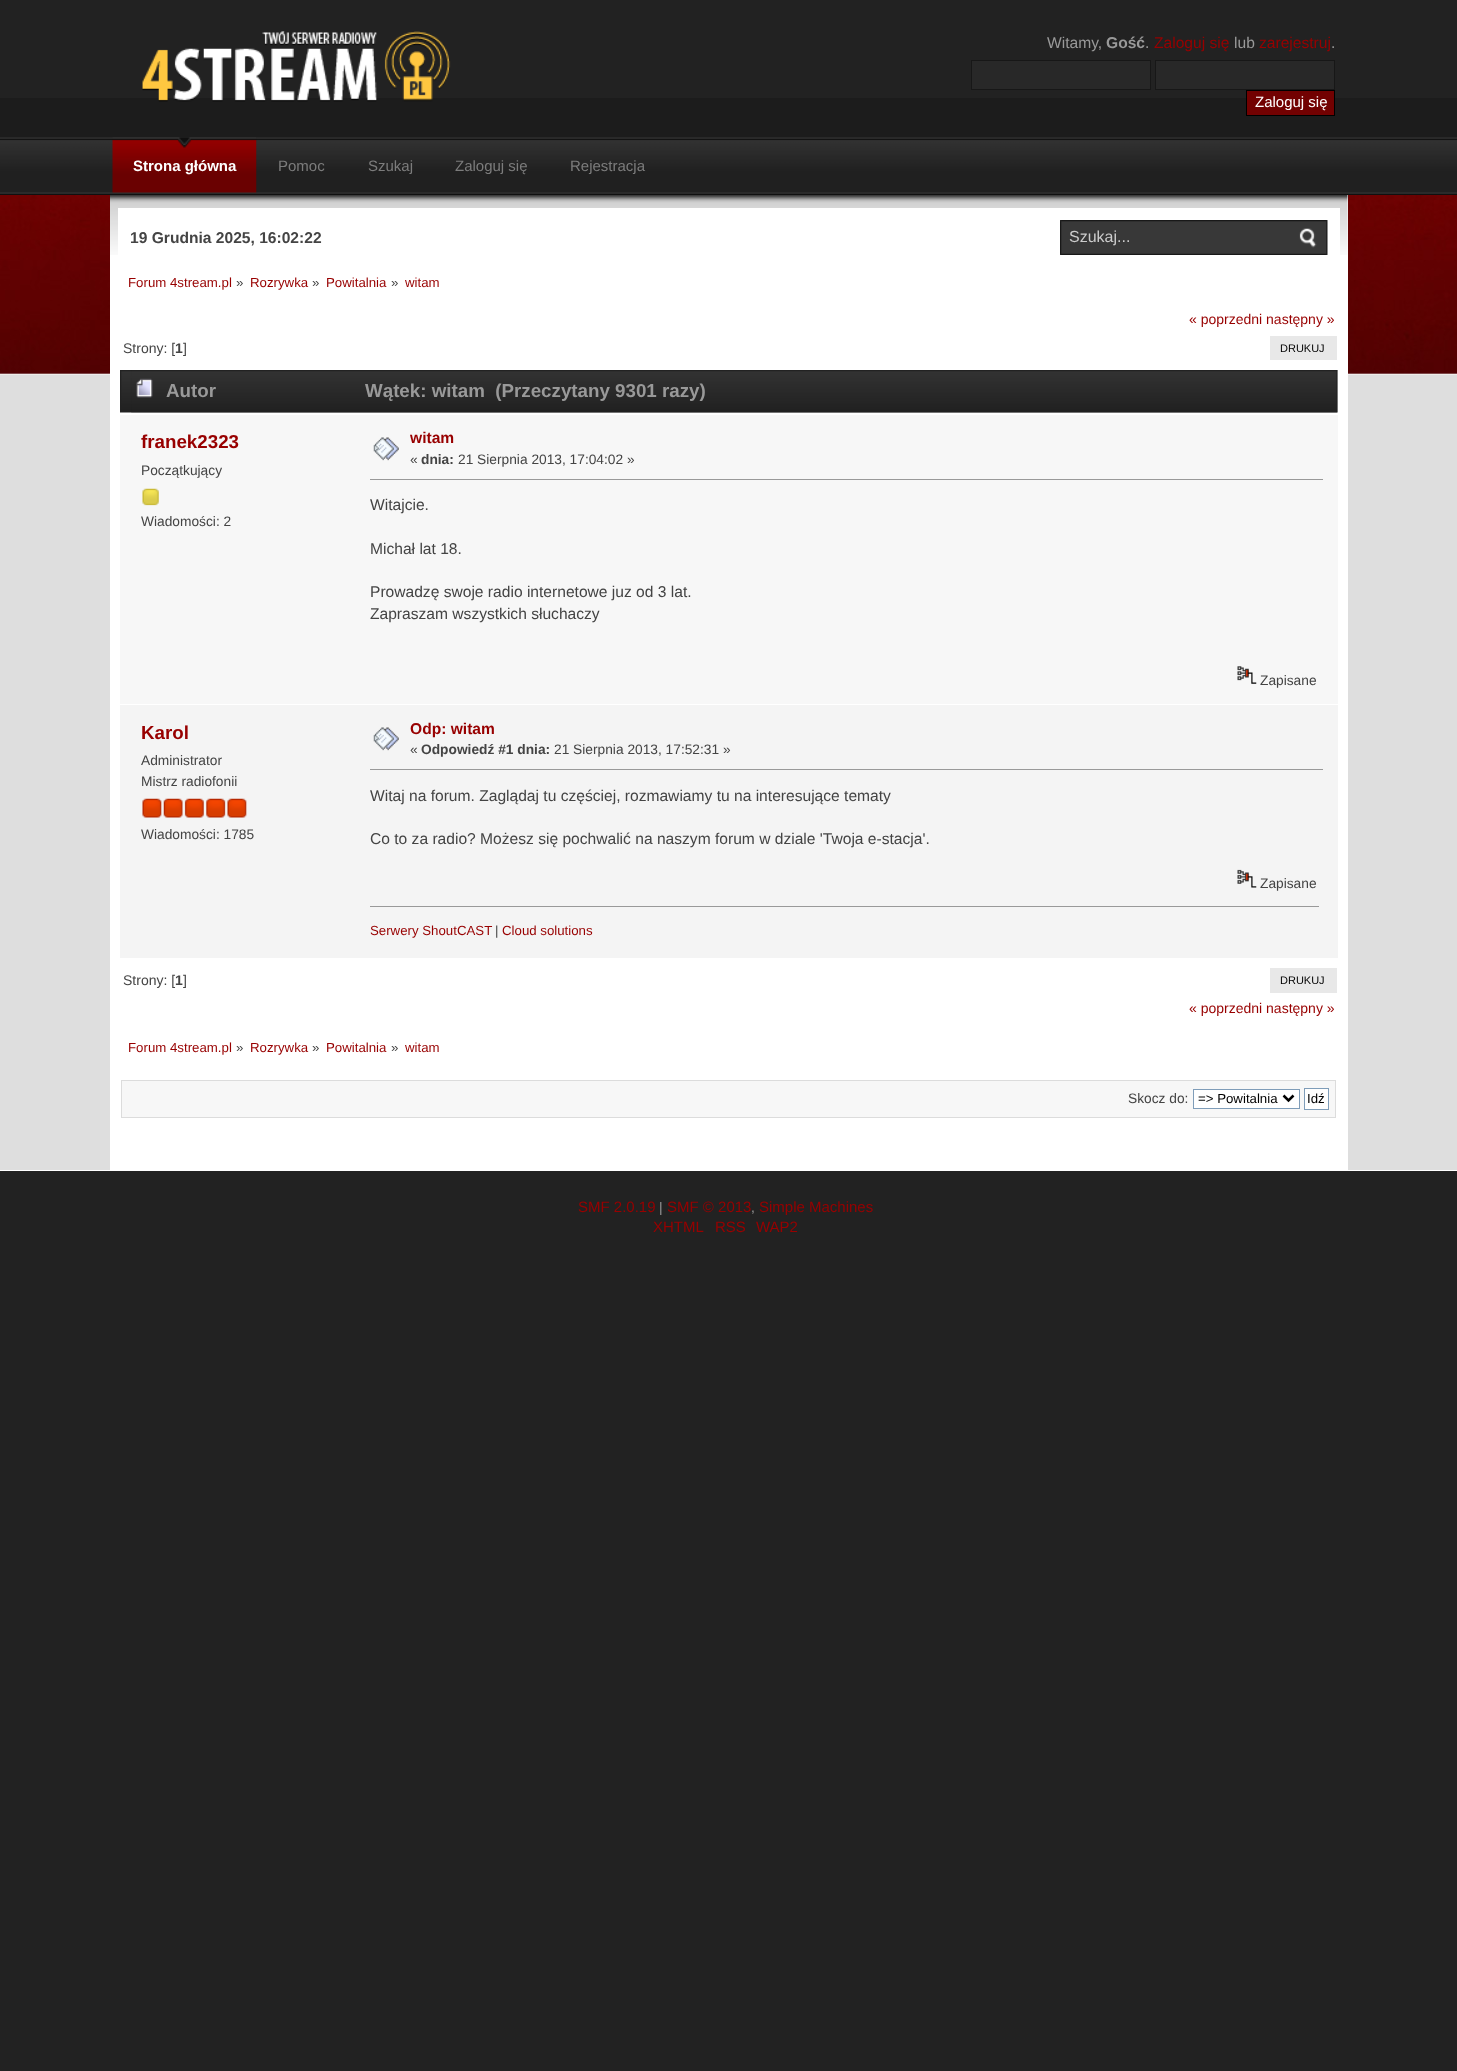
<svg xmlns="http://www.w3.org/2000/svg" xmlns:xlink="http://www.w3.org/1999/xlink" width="1457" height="2071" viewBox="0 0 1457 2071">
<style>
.cls-1{font:15.6px Liberation Sans;fill:#999999}
.cls-2{font:bold 15.6px Liberation Sans;fill:#999999}
.cls-3{font:15.6px Liberation Sans;fill:#980000}
.cls-4{font:15px Liberation Sans;fill:#ffffff}
.cls-5{font:bold 15px Liberation Sans;fill:#ffffff}
.cls-6{font:15px Liberation Sans;fill:#7c7c7c}
.cls-7{font:bold 15.6px Liberation Sans;fill:#444444}
.cls-8{font:16px Liberation Sans;fill:#cccccc}
.cls-9{font:13.25px Liberation Sans;fill:#980000}
.cls-10{font:13.25px Liberation Sans;fill:#444444}
.cls-11{font:14px Liberation Sans;fill:#980000}
.cls-12{font:14px Liberation Sans;fill:#444444}
.cls-13{font:bold 14px Liberation Sans;fill:#444444}
.cls-14{font:11px Liberation Sans;fill:#000000}
.cls-15{font:bold 18.75px Liberation Sans;fill:#999999}
.cls-16{font:bold 18.75px Liberation Sans;fill:#980000}
.cls-17{font:13.75px Liberation Sans;fill:#444444}
.cls-18{font:bold 15.6px Liberation Sans;fill:#980000}
.cls-19{font:bold 13.75px Liberation Sans;fill:#444444}
.cls-20{font:15.6px Liberation Sans;fill:#444444}
.cls-21{font:13.25px Liberation Sans;fill:#000000}
.cls-22{font:15px Liberation Sans;fill:#980000}
.cls-23{font:13.75px Liberation Sans;fill:#999999}
</style>
<rect width="100%" height="100%" fill="#222222"/>
<rect fill="#1c1c1c" x="0" y="98" width="1457" height="40"/>
<image xlink:href="image0.png" x="142" y="31" width="309" height="71"/>
<rect fill="#282828" stroke="#171717" x="971.5" y="60.5" width="179" height="29"/>
<rect fill="#282828" stroke="#171717" x="1155.5" y="60.5" width="179" height="29"/>
<rect fill="#720101" stroke="#000000" x="1246.5" y="90.5" width="88" height="25"/>
<image xlink:href="image1.png" x="0" y="137" width="1457" height="58"/>
<image xlink:href="image2.png" x="112" y="137" width="145" height="56"/>
<rect fill="#dedede" x="0" y="375" width="1457" height="795"/>
<image xlink:href="image3.png" x="0" y="195" width="1457" height="180"/>
<rect fill="#ffffff" x="110" y="195" width="1238" height="975"/>
<image xlink:href="image4.png" x="110" y="195" width="1238" height="60"/>
<rect fill="#ffffff" x="118" y="208" width="1222" height="47"/>
<image xlink:href="image5.png" x="1060" y="220" width="268" height="35"/>
<rect fill="#e8e8e8" x="1270" y="336" width="67" height="24"/>
<image xlink:href="image6.png" x="120" y="370" width="1218" height="43"/>
<image xlink:href="image7.png" x="131" y="370" width="1207" height="43"/>
<image xlink:href="image8.png" x="136" y="378" width="17" height="20"/>
<rect fill="#f7f7f7" x="120" y="415" width="1218" height="289"/>
<image xlink:href="image9.png" x="142" y="488" width="17" height="18"/>
<image xlink:href="image10.png" x="373" y="437" width="26" height="24"/>
<rect fill="#999999" x="370" y="479" width="953" height="1"/>
<image xlink:href="image11.png" x="1237" y="666" width="20" height="18"/>
<rect fill="#f4f4f4" x="120" y="705" width="1218" height="253"/>
<image xlink:href="image12.png" x="142" y="798" width="20" height="20"/>
<image xlink:href="image13.png" x="163" y="798" width="20" height="20"/>
<image xlink:href="image14.png" x="184" y="798" width="20" height="20"/>
<image xlink:href="image15.png" x="206" y="798" width="20" height="20"/>
<image xlink:href="image12.png" x="227" y="798" width="20" height="20"/>
<image xlink:href="image16.png" x="373" y="727" width="26" height="24"/>
<rect fill="#999999" x="370" y="769" width="953" height="1"/>
<image xlink:href="image17.png" x="1237" y="869" width="20" height="19"/>
<rect fill="#999999" x="370" y="906" width="949" height="1"/>
<rect fill="#e8e8e8" x="1270" y="968" width="67" height="25"/>
<rect fill="#f7f7f7" stroke="#dcdcdc" x="121.5" y="1080.5" width="1214" height="37"/>
<rect fill="#ffffff" stroke="#7f9db9" x="1193.5" y="1089.5" width="106" height="19"/>
<path fill="none" stroke="#000000" stroke-width="2.5" d="M1283.5 1095.5L1288.5 1100.5L1293.5 1095.5"/>
<rect fill="#ffffff" stroke="#7f9db9" x="1304.5" y="1088.5" width="24" height="21"/>
<rect fill="#ffffff" x="0" y="1170" width="1457" height="1"/>
<text class="cls-1" x="1047" y="48">Witamy,</text>
<text class="cls-2" x="1106" y="48">Gość</text>
<text class="cls-1" x="1145" y="48">.</text>
<text class="cls-3" x="1154" y="48">Zaloguj się</text>
<text class="cls-1" x="1234" y="48">lub</text>
<text class="cls-3" x="1259" y="48">zarejestruj</text>
<text class="cls-1" x="1331" y="48">.</text>
<text class="cls-4" x="1255" y="107">Zaloguj się</text>
<text class="cls-5" x="133" y="171">Strona główna</text>
<text class="cls-6" x="278" y="171">Pomoc</text>
<text class="cls-6" x="368" y="171">Szukaj</text>
<text class="cls-6" x="455" y="171">Zaloguj się</text>
<text class="cls-6" x="570" y="171">Rejestracja</text>
<text class="cls-7" x="130" y="243">19 Grudnia 2025, 16:02:22</text>
<text class="cls-8" x="1069" y="242">Szukaj...</text>
<text class="cls-9" x="128" y="287">Forum 4stream.pl</text>
<text class="cls-10" x="236" y="287">»</text>
<text class="cls-9" x="250" y="287">Rozrywka</text>
<text class="cls-10" x="312" y="287">»</text>
<text class="cls-9" x="326" y="287">Powitalnia</text>
<text class="cls-10" x="391" y="287">»</text>
<text class="cls-9" x="405" y="287">witam</text>
<text class="cls-11" x="1189" y="324">« poprzedni następny »</text>
<text class="cls-12" x="123" y="353">Strony: [</text>
<text class="cls-13" x="175" y="353">1</text>
<text class="cls-12" x="183" y="353">]</text>
<text class="cls-14" x="1280" y="352">DRUKUJ</text>
<text class="cls-15" x="166" y="397">Autor</text>
<text class="cls-15" xml:space="preserve" x="365" y="397">Wątek: witam  (Przeczytany 9301 razy)</text>
<text class="cls-16" x="141" y="448">franek2323</text>
<text class="cls-17" x="141" y="475">Początkujący</text>
<text class="cls-17" x="141" y="526">Wiadomości: 2</text>
<text class="cls-18" x="410" y="443">witam</text>
<text class="cls-17" x="410" y="464">«</text>
<text class="cls-19" x="421" y="464">dnia:</text>
<text class="cls-17" x="458" y="464">21 Sierpnia 2013, 17:04:02 »</text>
<text class="cls-20" x="370" y="510">Witajcie.</text>
<text class="cls-20" x="370" y="554">Michał lat 18.</text>
<text class="cls-20"><tspan x="370" y="597">Prowadzę swoje radio internetowe juz od 3 lat.</tspan><tspan x="370" y="619">Zapraszam wszystkich słuchaczy</tspan></text>
<text class="cls-17" x="1260" y="685">Zapisane</text>
<text class="cls-16" x="141" y="739">Karol</text>
<text class="cls-17"><tspan x="141" y="765">Administrator</tspan><tspan x="141" y="786">Mistrz radiofonii</tspan></text>
<text class="cls-17" x="141" y="839">Wiadomości: 1785</text>
<text class="cls-18" x="410" y="734">Odp: witam</text>
<text class="cls-17" x="410" y="754">«</text>
<text class="cls-19" x="421" y="754">Odpowiedź #1 dnia:</text>
<text class="cls-17" x="554" y="754">21 Sierpnia 2013, 17:52:31 »</text>
<text class="cls-20" x="370" y="801">Witaj na forum. Zaglądaj tu częściej, rozmawiamy tu na interesujące tematy</text>
<text class="cls-20" x="370" y="844">Co to za radio? Możesz się pochwalić na naszym forum w dziale 'Twoja e-stacja'.</text>
<text class="cls-17" x="1260" y="888">Zapisane</text>
<text class="cls-9" x="370" y="935">Serwery ShoutCAST</text>
<text class="cls-10" x="495" y="935">|</text>
<text class="cls-9" x="502" y="935">Cloud solutions</text>
<text class="cls-12" x="123" y="985">Strony: [</text>
<text class="cls-13" x="175" y="985">1</text>
<text class="cls-12" x="183" y="985">]</text>
<text class="cls-14" x="1280" y="984">DRUKUJ</text>
<text class="cls-11" x="1189" y="1013">« poprzedni następny »</text>
<text class="cls-9" x="128" y="1052">Forum 4stream.pl</text>
<text class="cls-10" x="236" y="1052">»</text>
<text class="cls-9" x="250" y="1052">Rozrywka</text>
<text class="cls-10" x="312" y="1052">»</text>
<text class="cls-9" x="326" y="1052">Powitalnia</text>
<text class="cls-10" x="391" y="1052">»</text>
<text class="cls-9" x="405" y="1052">witam</text>
<text class="cls-17" x="1128" y="1103">Skocz do:</text>
<text class="cls-21" x="1198" y="1103">=&gt; Powitalnia</text>
<text class="cls-21" x="1307" y="1103">Idź</text>
<text class="cls-22" x="578" y="1212">SMF 2.0.19</text>
<text class="cls-23" x="659" y="1212">|</text>
<text class="cls-22" x="667" y="1212">SMF © 2013</text>
<text class="cls-23" x="751" y="1212">,</text>
<text class="cls-22" x="759" y="1212">Simple Machines</text>
<text class="cls-22" x="653" y="1232">XHTML</text>
<text class="cls-22" x="715" y="1232">RSS</text>
<text class="cls-22" x="756" y="1232">WAP2</text>
</svg>
